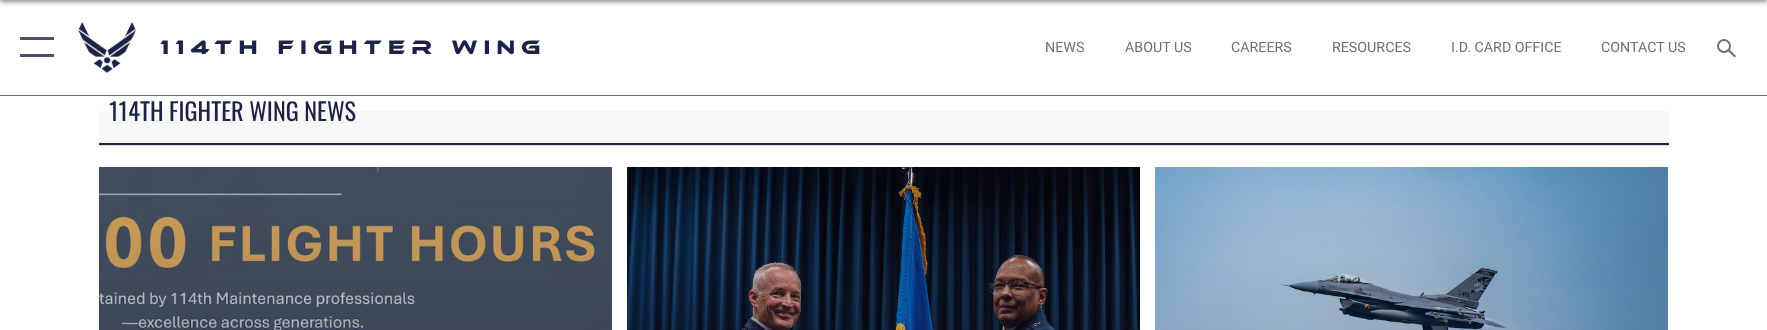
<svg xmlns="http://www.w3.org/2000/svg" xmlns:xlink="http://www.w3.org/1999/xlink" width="1767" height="330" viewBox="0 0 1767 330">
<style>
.cls-1{font:20.25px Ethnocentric;letter-spacing:6.1px;fill:#1c2347}
.cls-2{font:14.25px Roboto;fill:#707070}
.cls-3{font:24.25px Oswald;fill:#1c2347}
</style>
<defs>
<linearGradient id="g1" gradientUnits="userSpaceOnUse" x1="884" y1="96" x2="884" y2="145"><stop offset="0" stop-color="#ffffff"/><stop offset="0.31" stop-color="#ffffff"/><stop offset="0.31" stop-color="#f7f7f7"/><stop offset="1" stop-color="#f7f7f7"/></linearGradient>
</defs>
<rect width="100%" height="100%" fill="#ffffff"/>
<rect fill="#1a1a1a" fill-opacity="0.5" filter="blur(2.5px)" x="0" y="-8" width="1767" height="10"/>
<rect fill="#707070" x="0" y="95" width="1767" height="1"/>
<rect fill="#49506d" x="20" y="37" width="34" height="3" rx="0.5"/>
<rect fill="#49506d" x="20" y="54" width="34" height="3" rx="0.5"/>
<image xlink:href="image0.png" x="78" y="22" width="58" height="51"/>
<circle fill="none" stroke="#707070" stroke-width="2" cx="1724" cy="46" r="6"/>
<path fill="#707070" d="M1729 49L1736 56L1734.5 57.5L1727.5 50.5Z"/>
<rect fill="url(#g1)" x="99" y="111" width="1570" height="32"/>
<rect fill="#dee2e6" x="99" y="145" width="1570" height="1"/>
<rect fill="#1c2347" x="99" y="143" width="1570" height="2"/>
<image xlink:href="image1.png" x="99" y="167" width="513" height="163"/>
<image xlink:href="image2.png" x="627" y="167" width="513" height="163"/>
<image xlink:href="image3.png" x="1155" y="167" width="513" height="163"/>
<text class="cls-1" x="160" y="54">114th Fighter Wing</text>
<text class="cls-2" x="1045" y="52">NEWS</text>
<text class="cls-2" x="1125" y="52">ABOUT US</text>
<text class="cls-2" x="1231" y="52">CAREERS</text>
<text class="cls-2" x="1332" y="52">RESOURCES</text>
<text class="cls-2" x="1451" y="52">I.D. CARD OFFICE</text>
<text class="cls-2" x="1601" y="52">CONTACT US</text>
<text class="cls-3" x="109" y="121">114TH FIGHTER WING NEWS</text>
</svg>
